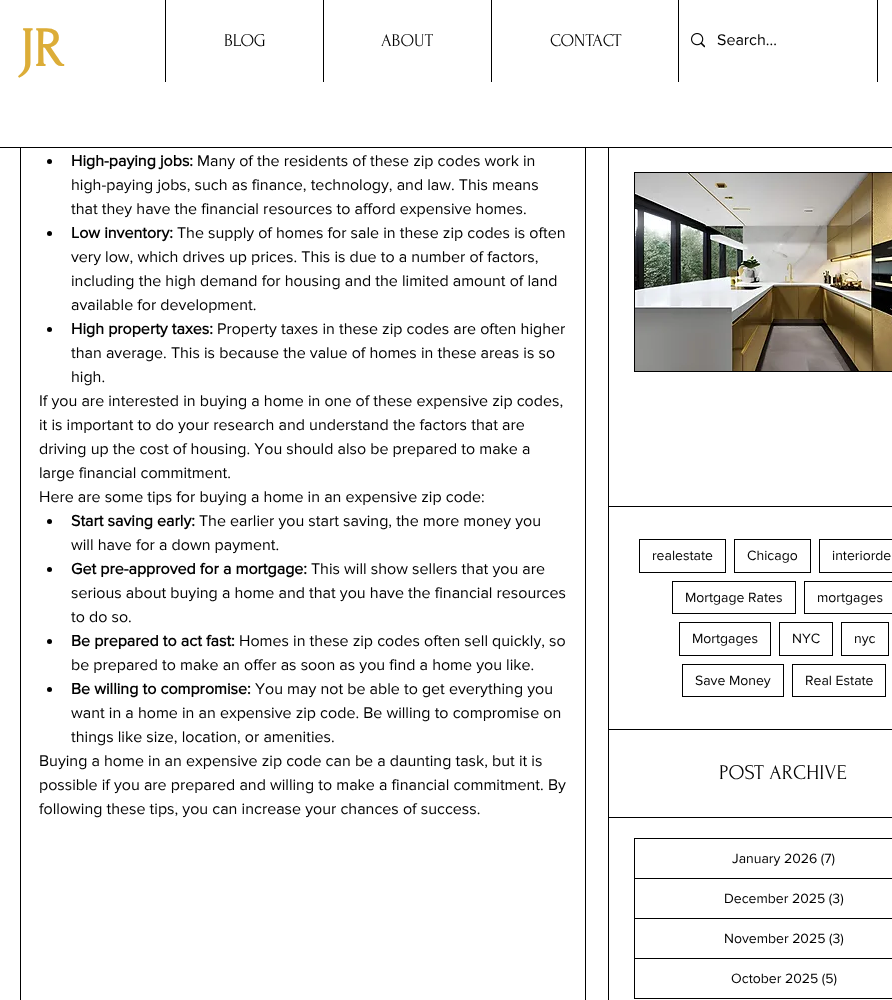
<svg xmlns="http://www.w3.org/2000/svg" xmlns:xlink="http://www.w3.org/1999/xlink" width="892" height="1000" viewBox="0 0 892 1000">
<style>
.cls-1{font:bold 55px Forum;fill:#dcad38}
.cls-2{font:18px Forum;fill:#000000}
.cls-3{font:16px 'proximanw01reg';fill:#000000}
.cls-4{font:bold 16px 'proximanw01reg';fill:#000000}
.cls-5{font:14px 'proximanw01reg';fill:#000000}
.cls-6{font:21px Forum;fill:#000000}
</style>
<rect width="100%" height="100%" fill="#ffffff"/>
<rect fill="none" stroke="#000000" x="20.5" y="-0.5" width="565" height="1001"/>
<rect fill="none" stroke="#000000" x="608.5" y="-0.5" width="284" height="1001"/>
<rect fill="#ffffff" x="20" y="0" width="589" height="147"/>
<rect fill="#000000" x="0" y="147" width="892" height="1"/>
<rect fill="#000000" x="165" y="0" width="1" height="82"/>
<rect fill="#000000" x="323" y="0" width="1" height="82"/>
<rect fill="#000000" x="491" y="0" width="1" height="82"/>
<rect fill="#000000" x="678" y="0" width="1" height="82"/>
<image xlink:href="image0.png" x="691" y="33" width="14" height="15"/>
<rect fill="#000000" x="877" y="0" width="1" height="82"/>
<circle fill="#000000" cx="49.5" cy="161.5" r="2.5"/>
<circle fill="#000000" cx="49.5" cy="233.5" r="2.5"/>
<circle fill="#000000" cx="49.5" cy="329.5" r="2.5"/>
<circle fill="#000000" cx="49.5" cy="521.5" r="2.5"/>
<circle fill="#000000" cx="49.5" cy="569.5" r="2.5"/>
<circle fill="#000000" cx="49.5" cy="641.5" r="2.5"/>
<circle fill="#000000" cx="49.5" cy="689.5" r="2.5"/>
<rect fill="#000000" x="634" y="172" width="258" height="200"/>
<image xlink:href="image1.png" x="635" y="173" width="257" height="198"/>
<rect fill="#000000" x="608" y="506" width="284" height="1"/>
<rect fill="none" stroke="#000000" x="639.5" y="539.5" width="86" height="33"/>
<rect fill="none" stroke="#000000" x="734.5" y="539.5" width="76" height="33"/>
<rect fill="none" stroke="#000000" x="819.5" y="539.5" width="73" height="33"/>
<rect fill="none" stroke="#000000" x="672.5" y="581.5" width="123" height="32"/>
<rect fill="none" stroke="#000000" x="804.5" y="581.5" width="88" height="32"/>
<rect fill="none" stroke="#000000" x="679.5" y="622.5" width="91" height="33"/>
<rect fill="none" stroke="#000000" x="779.5" y="622.5" width="53" height="33"/>
<rect fill="none" stroke="#000000" x="841.5" y="622.5" width="47" height="33"/>
<rect fill="none" stroke="#000000" x="682.5" y="664.5" width="101" height="32"/>
<rect fill="none" stroke="#000000" x="792.5" y="664.5" width="93" height="32"/>
<rect fill="#000000" x="608" y="729" width="284" height="1"/>
<rect fill="#000000" x="608" y="817" width="284" height="1"/>
<rect fill="none" stroke="#000000" x="634.5" y="838.5" width="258" height="160"/>
<rect fill="#000000" x="635" y="878" width="257" height="1"/>
<rect fill="#000000" x="635" y="918" width="257" height="1"/>
<rect fill="#000000" x="635" y="958" width="257" height="1"/>
<text class="cls-1" x="19" y="66">JR</text>
<text class="cls-2" x="224" y="46">BLOG</text>
<text class="cls-2" x="381" y="46">ABOUT</text>
<text class="cls-2" x="550" y="46">CONTACT</text>
<text class="cls-3" x="717" y="45">Search...</text>
<text class="cls-4" x="71" y="166">High-paying jobs:</text>
<text class="cls-3" x="197" y="166">Many of the residents of these zip codes work in</text>
<text class="cls-3"><tspan x="71" y="190">high-paying jobs, such as finance, technology, and law. This means</tspan><tspan x="71" y="214">that they have the financial resources to afford expensive homes.</tspan></text>
<text class="cls-4" x="71" y="238">Low inventory:</text>
<text class="cls-3" x="177" y="238">The supply of homes for sale in these zip codes is often</text>
<text class="cls-3"><tspan x="71" y="262">very low, which drives up prices. This is due to a number of factors,</tspan><tspan x="71" y="286">including the high demand for housing and the limited amount of land</tspan><tspan x="71" y="310">available for development.</tspan></text>
<text class="cls-4" x="71" y="334">High property taxes:</text>
<text class="cls-3" x="217" y="334">Property taxes in these zip codes are often higher</text>
<text class="cls-3"><tspan x="71" y="358">than average. This is because the value of homes in these areas is so</tspan><tspan x="71" y="382">high.</tspan></text>
<text class="cls-3"><tspan x="39" y="406">If you are interested in buying a home in one of these expensive zip codes,</tspan><tspan x="39" y="430">it is important to do your research and understand the factors that are</tspan><tspan x="39" y="454">driving up the cost of housing. You should also be prepared to make a</tspan><tspan x="39" y="478">large financial commitment.</tspan><tspan x="39" y="502">Here are some tips for buying a home in an expensive zip code:</tspan></text>
<text class="cls-4" x="71" y="526">Start saving early:</text>
<text class="cls-3" x="199" y="526">The earlier you start saving, the more money you</text>
<text class="cls-3" x="71" y="550">will have for a down payment.</text>
<text class="cls-4" x="71" y="574">Get pre-approved for a mortgage:</text>
<text class="cls-3" x="311" y="574">This will show sellers that you are</text>
<text class="cls-3"><tspan x="71" y="598">serious about buying a home and that you have the financial resources</tspan><tspan x="71" y="622">to do so.</tspan></text>
<text class="cls-4" x="71" y="646">Be prepared to act fast:</text>
<text class="cls-3" x="239" y="646">Homes in these zip codes often sell quickly, so</text>
<text class="cls-3" x="71" y="670">be prepared to make an offer as soon as you find a home you like.</text>
<text class="cls-4" x="71" y="694">Be willing to compromise:</text>
<text class="cls-3" x="255" y="694">You may not be able to get everything you</text>
<text class="cls-3"><tspan x="71" y="718">want in a home in an expensive zip code. Be willing to compromise on</tspan><tspan x="71" y="742">things like size, location, or amenities.</tspan></text>
<text class="cls-3"><tspan x="39" y="766">Buying a home in an expensive zip code can be a daunting task, but it is</tspan><tspan x="39" y="790">possible if you are prepared and willing to make a financial commitment. By</tspan><tspan x="39" y="814">following these tips, you can increase your chances of success.</tspan></text>
<text class="cls-5" x="652" y="560">realestate</text>
<text class="cls-5" x="747" y="560">Chicago</text>
<text class="cls-5" x="832" y="560">interiorde</text>
<text class="cls-5" x="685" y="602">Mortgage Rates</text>
<text class="cls-5" x="817" y="602">mortgages</text>
<text class="cls-5" x="692" y="643">Mortgages</text>
<text class="cls-5" x="792" y="643">NYC</text>
<text class="cls-5" x="854" y="643">nyc</text>
<text class="cls-5" x="695" y="685">Save Money</text>
<text class="cls-5" x="805" y="685">Real Estate</text>
<text class="cls-6" x="719" y="779">POST ARCHIVE</text>
<text class="cls-5" x="732" y="863">January 2026 (7)</text>
<text class="cls-5" x="724" y="903">December 2025 (3)</text>
<text class="cls-5" x="724" y="943">November 2025 (3)</text>
<text class="cls-5" x="731" y="983">October 2025 (5)</text>
</svg>
